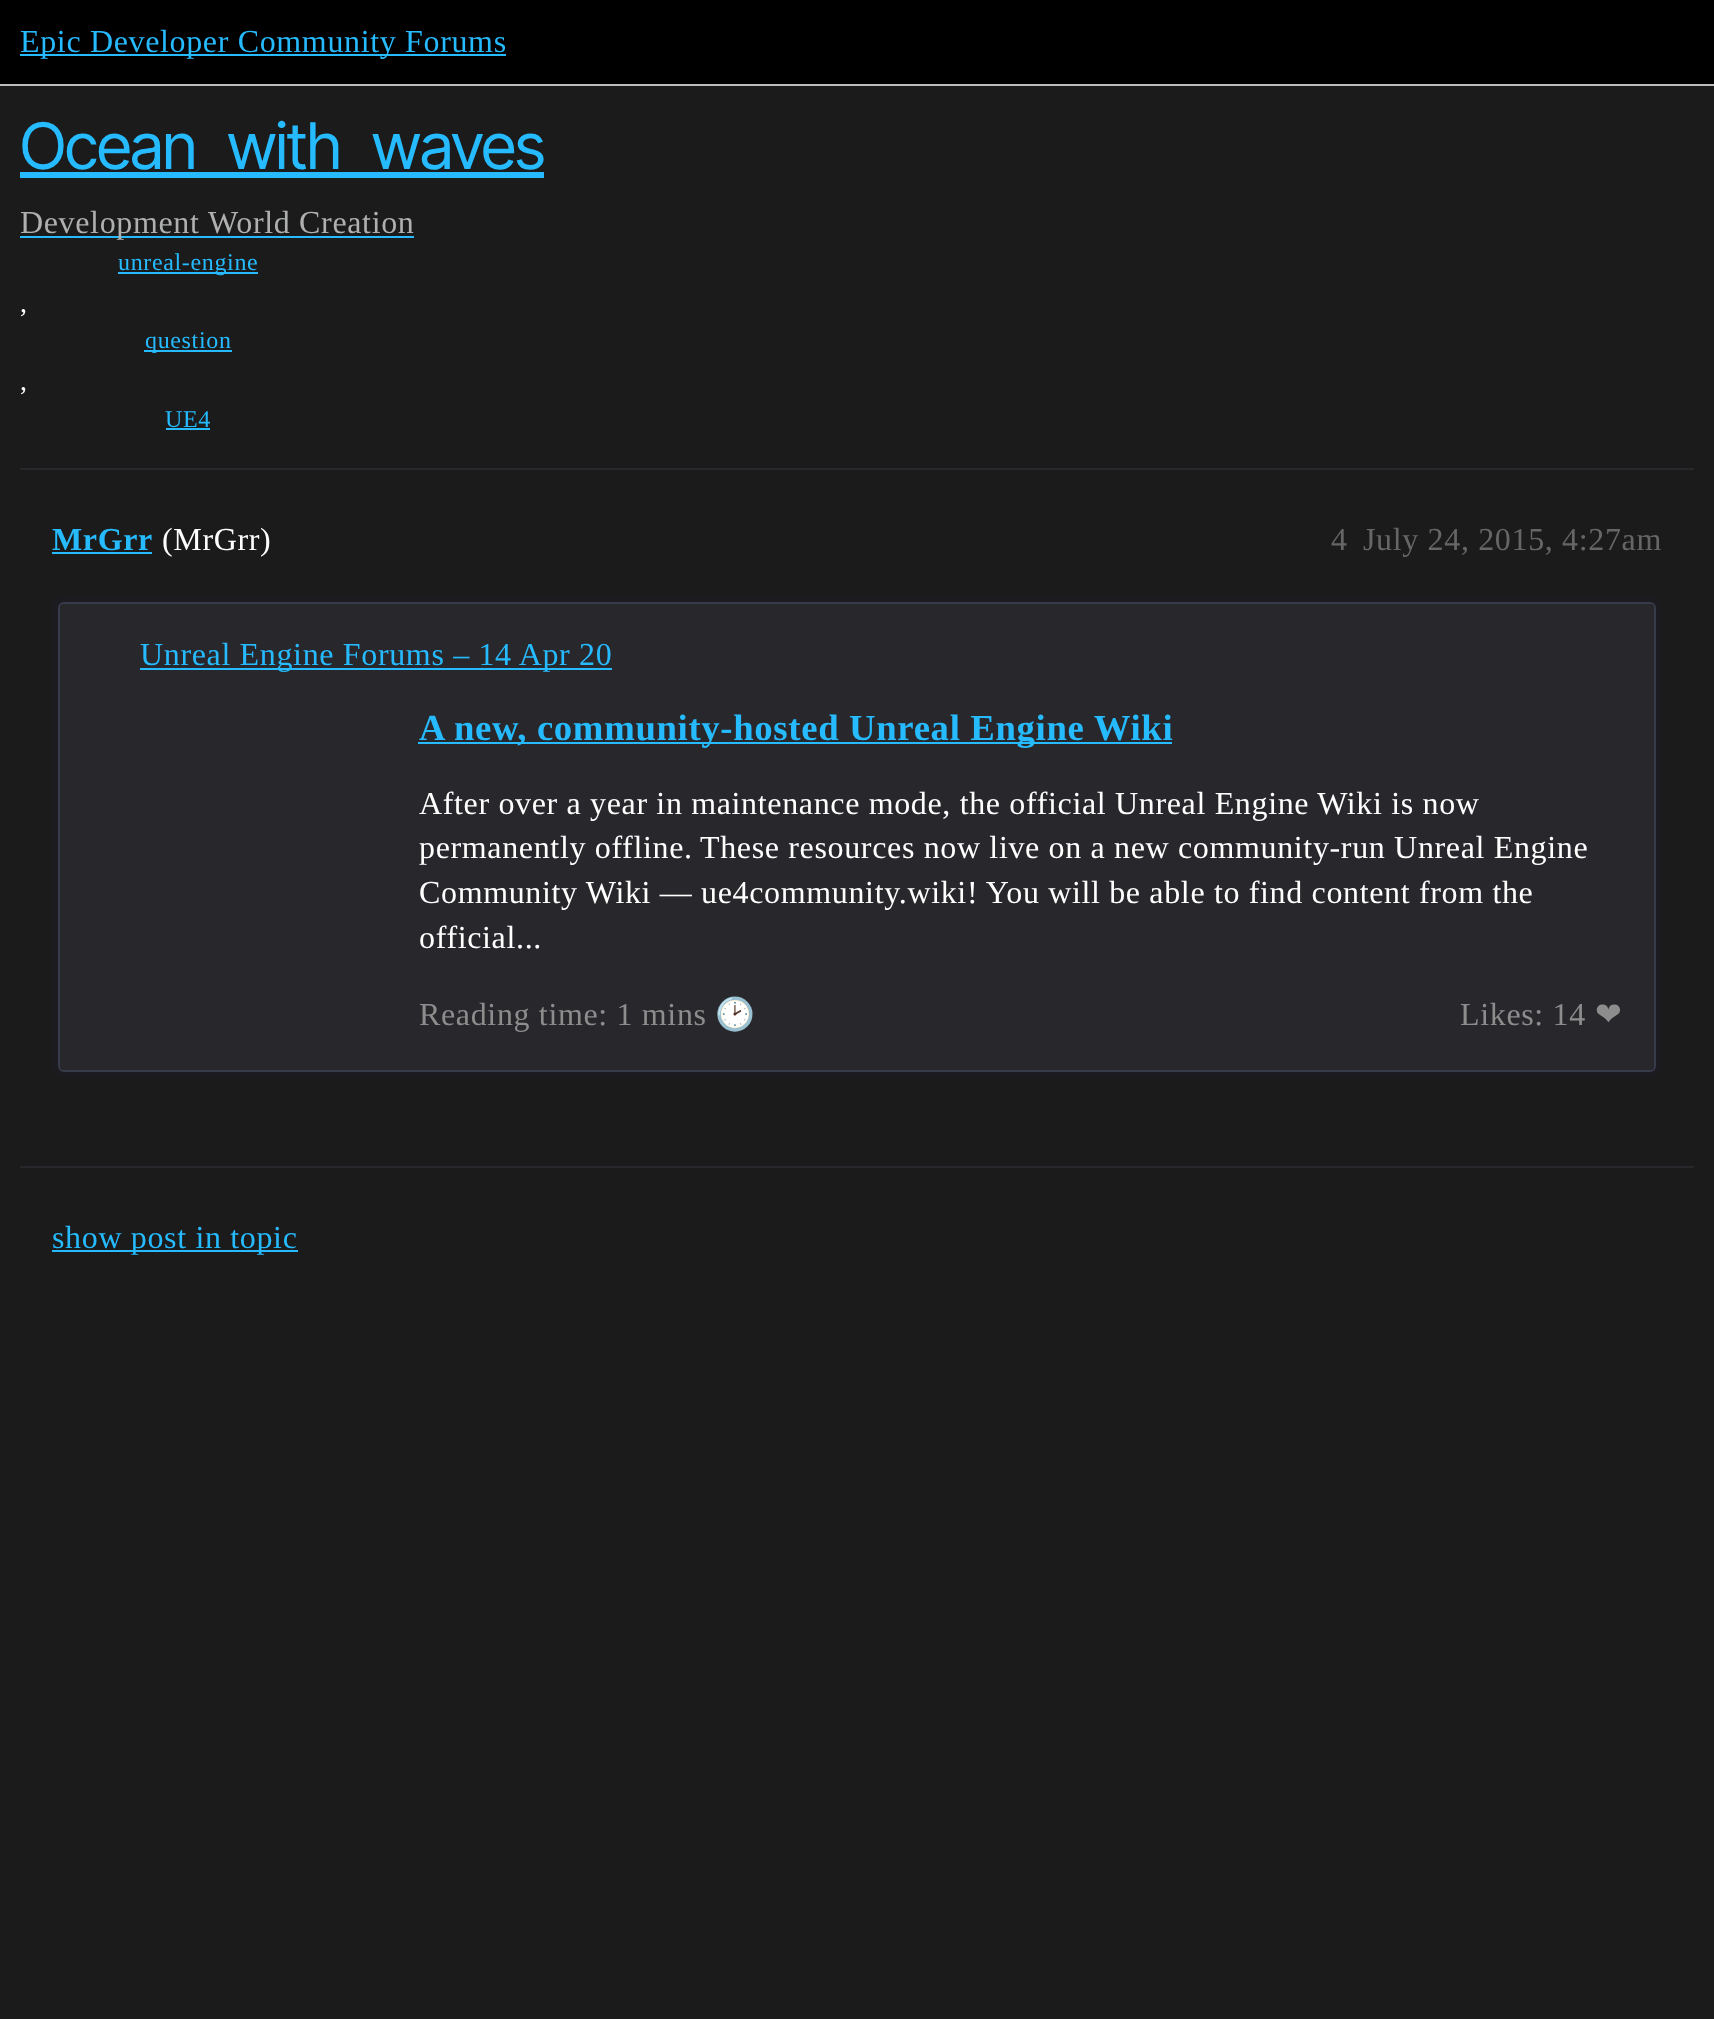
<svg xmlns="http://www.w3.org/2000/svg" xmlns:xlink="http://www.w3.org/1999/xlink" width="1714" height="2019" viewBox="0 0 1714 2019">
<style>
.cls-1{font:32px Liberation Serif;letter-spacing:0.65px;fill:#26bbff}
.cls-2{font:64.25px Inter Tight;letter-spacing:-1px;fill:#26bbff}
.cls-3{font:32px Liberation Serif;letter-spacing:0.65px;fill:#afb0b0}
.cls-4{font:24px Liberation Serif;letter-spacing:0.65px;fill:#26bbff}
.cls-5{font:28px Liberation Serif;letter-spacing:0.65px;fill:#ffffff}
.cls-6{font:bold 32px Liberation Serif;letter-spacing:0.65px;fill:#26bbff}
.cls-7{font:32px Liberation Serif;letter-spacing:0.65px;fill:#ffffff}
.cls-8{font:32px Liberation Serif;letter-spacing:0.65px;fill:#666666}
.cls-9{font:bold 36.75px Liberation Serif;letter-spacing:0.65px;fill:#26bbff}
.cls-10{font:32px Liberation Serif;letter-spacing:0.65px;fill:#8d8d8d}
.cls-11{font:32px Noto Color Emoji;letter-spacing:0.65px;fill:#8d8d8d}
.cls-12{font:32px DejaVu Sans;letter-spacing:0.65px;fill:#8d8d8d}
</style>
<rect width="100%" height="100%" fill="#1b1b1b"/>
<rect fill="#000000" x="0" y="0" width="1714" height="84"/>
<rect fill="#bdbdbd" x="0" y="84" width="1714" height="2"/>
<rect fill="#26bbff" x="20" y="54" width="486" height="2"/>
<rect fill="#26bbff" x="20" y="172" width="524" height="6"/>
<rect fill="#26bbff" x="20" y="236" width="394" height="2"/>
<rect fill="#26bbff" x="118" y="272" width="140" height="2"/>
<rect fill="#26bbff" x="144" y="350" width="88" height="2"/>
<rect fill="#26bbff" x="166" y="428" width="44" height="2"/>
<rect fill="#28282c" x="20" y="468" width="1674" height="2"/>
<rect fill="#26bbff" x="52" y="552" width="100" height="2"/>
<rect fill="none" stroke="#1c1c20" stroke-width="8" x="56" y="600" width="1602" height="474" rx="8"/>
<rect fill="none" stroke="#373b4b" stroke-width="2" x="59" y="603" width="1596" height="468" rx="5"/>
<rect fill="#28282c" x="60" y="604" width="1594" height="466" rx="4"/>
<rect fill="#26bbff" x="140" y="668" width="472" height="2"/>
<rect fill="#26bbff" x="418" y="742" width="754" height="2"/>
<rect fill="#28282c" x="20" y="1166" width="1674" height="2"/>
<rect fill="#26bbff" x="52" y="1250" width="246" height="2"/>
<text class="cls-1" x="20" y="52">Epic Developer Community Forums</text>
<text class="cls-2" x="20" y="169" word-spacing="17">Ocean with waves</text>
<text class="cls-3" x="20" y="233">Development</text>
<text class="cls-3" x="208" y="233">World Creation</text>
<text class="cls-4" x="118" y="270">unreal-engine</text>
<text class="cls-5" x="20" y="312">,</text>
<text class="cls-4" x="145" y="348">question</text>
<text class="cls-5" x="20" y="390">,</text>
<text class="cls-4" x="165" y="427">UE4</text>
<text class="cls-6" x="52" y="550">MrGrr</text>
<text class="cls-7" x="162" y="550">(MrGrr)</text>
<text class="cls-8" x="1331" y="550">4</text>
<text class="cls-8" x="1363" y="550">July 24, 2015, 4:27am</text>
<text class="cls-1" x="140" y="665">Unreal Engine Forums – 14 Apr 20</text>
<text class="cls-9" x="419" y="740">A new, community-hosted Unreal Engine Wiki</text>
<text class="cls-7"><tspan x="419" y="814">After over a year in maintenance mode, the official Unreal Engine Wiki is now</tspan><tspan x="419" y="858">permanently offline.</tspan></text>
<text class="cls-7" x="700" y="858">These resources now live on a new community-run Unreal Engine</text>
<text class="cls-7"><tspan x="419" y="903">Community Wiki — ue4community.wiki! You will be able to find content from the</tspan><tspan x="419" y="948">official...</tspan></text>
<text class="cls-10" x="419" y="1025">Reading time: 1 mins</text>
<text class="cls-11" x="715" y="1025">🕑</text>
<text class="cls-10" x="1460" y="1025">Likes: 14</text>
<text class="cls-12" x="1595" y="1025">❤</text>
<text class="cls-1" x="52" y="1248">show post in topic</text>
</svg>
